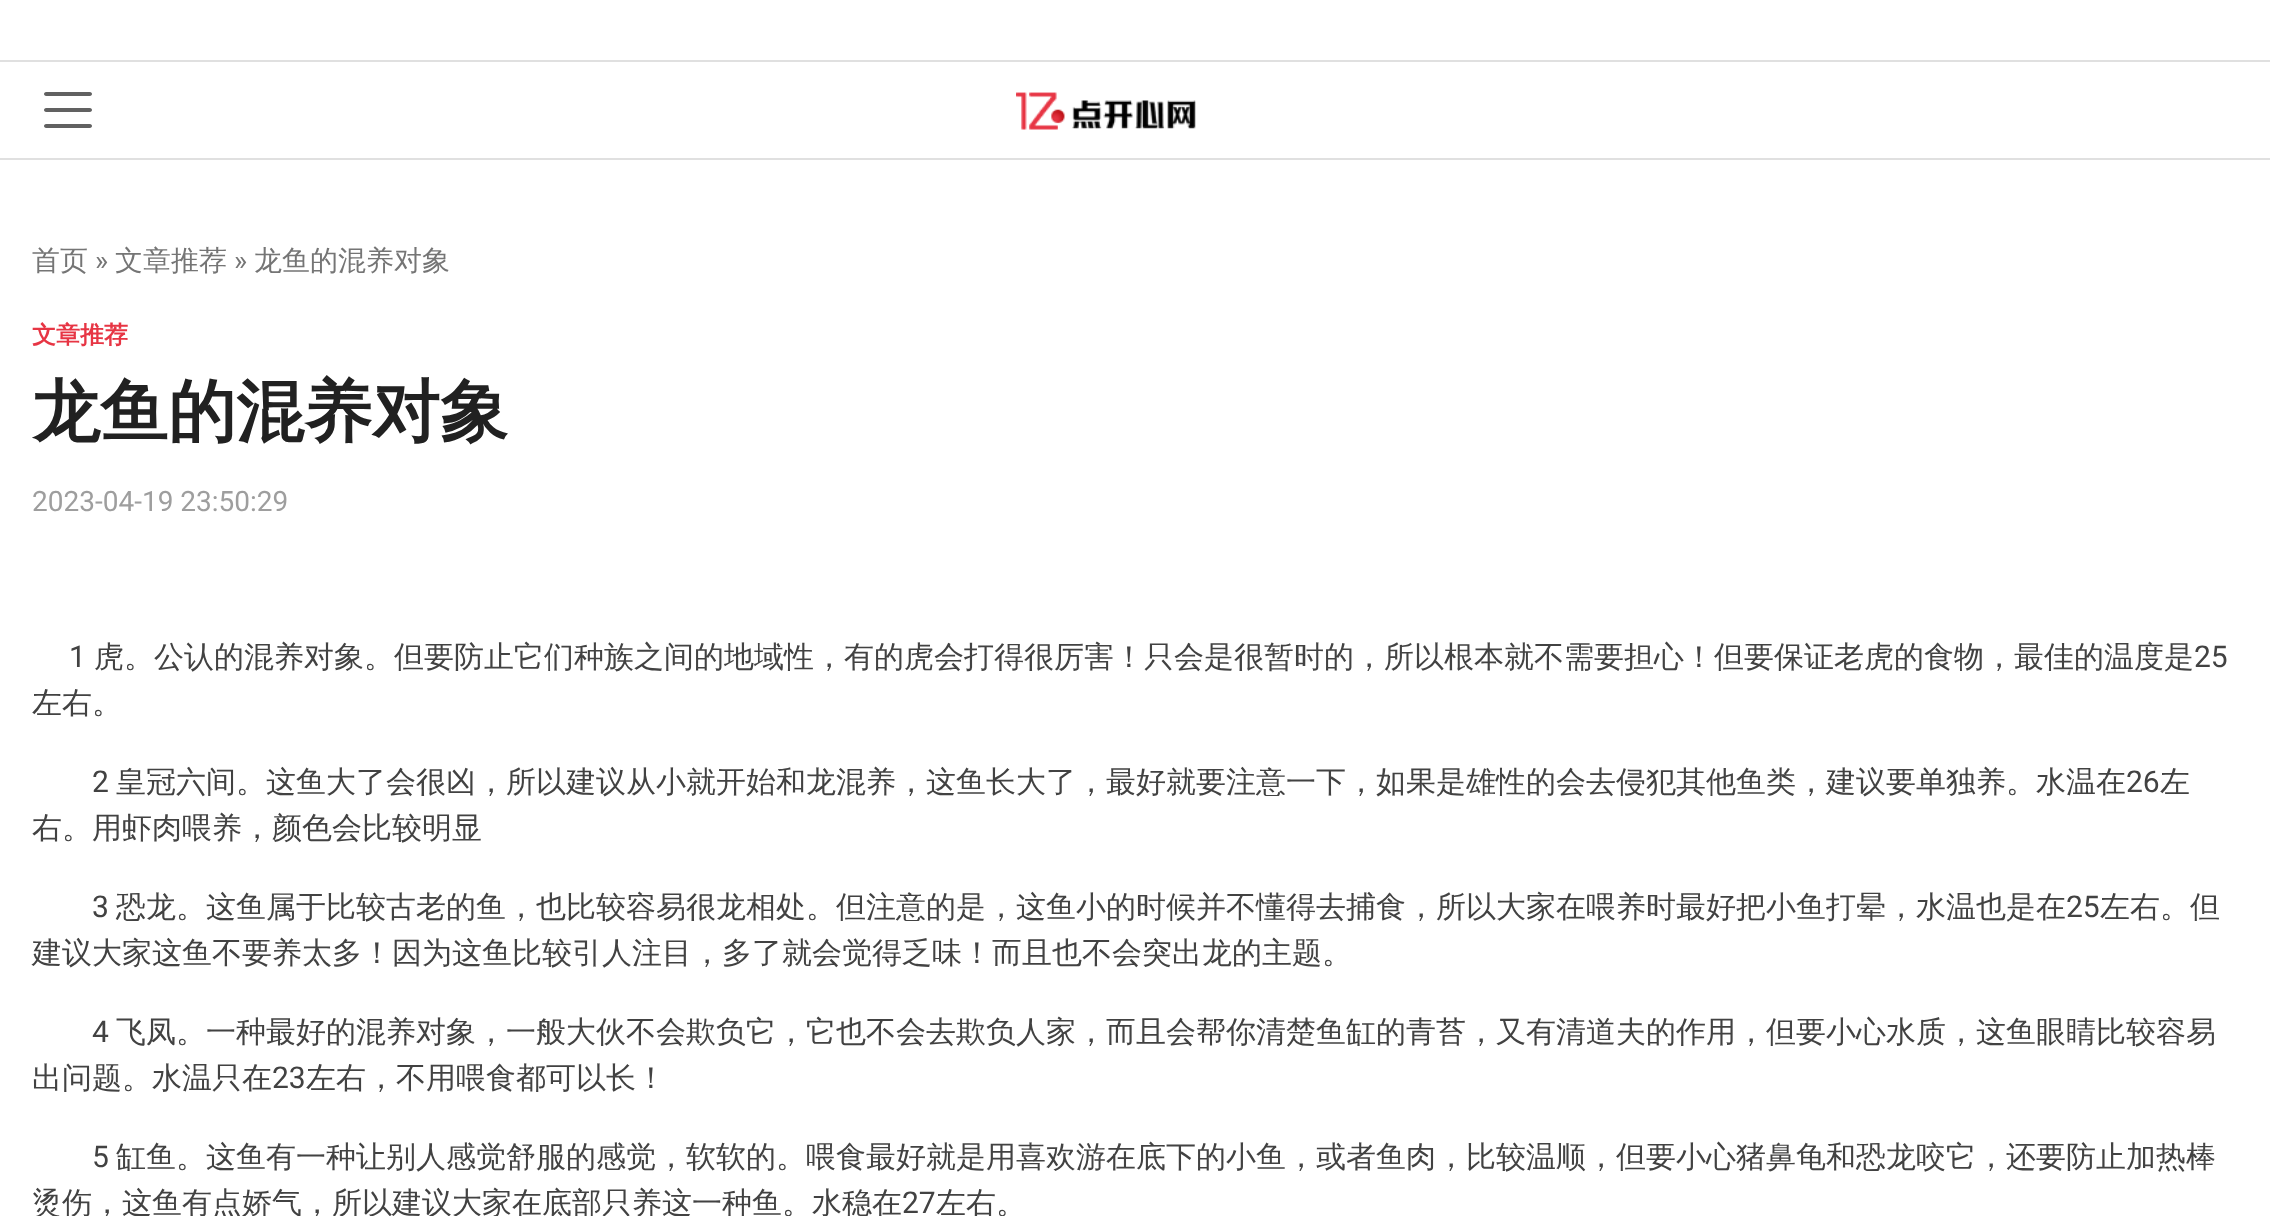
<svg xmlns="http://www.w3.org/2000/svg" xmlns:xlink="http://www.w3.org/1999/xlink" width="2270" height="1216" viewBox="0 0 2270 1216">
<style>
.cls-1{font:500 28px WenQuanYi Zen Hei;fill:#757575}
.cls-2{font:28px Roboto;fill:#757575}
.cls-3{font:bold 24px WenQuanYi Zen Hei;fill:#e73544}
.cls-4{font:bold 68px WenQuanYi Zen Hei;fill:#212121}
.cls-5{font:28px Roboto;fill:#9e9e9e}
.cls-6{font:30px Roboto;fill:#424242}
.cls-7{font:500 30px WenQuanYi Zen Hei;fill:#424242}
</style>
<rect width="100%" height="100%" fill="#ffffff"/>
<rect fill="#e0e0e0" x="0" y="60" width="2270" height="2"/>
<rect fill="#e0e0e0" x="0" y="158" width="2270" height="2"/>
<image xlink:href="image0.png" x="44" y="92" width="48" height="36"/>
<image xlink:href="image1.png" x="1016" y="92" width="180" height="38"/>
<text class="cls-1" x="32" y="270">首页</text>
<text class="cls-2" x="95" y="270">»</text>
<text class="cls-1" x="115" y="270">文章推荐</text>
<text class="cls-2" x="234" y="270">»</text>
<text class="cls-1" x="254" y="270">龙鱼的混养对象</text>
<text class="cls-3" x="32" y="343">文章推荐</text>
<text class="cls-4" x="32" y="435">龙鱼的混养对象</text>
<text class="cls-5" x="32" y="511">2023-04-19 23:50:29</text>
<text class="cls-6" x="69" y="667">1</text>
<text class="cls-7" x="94" y="667">虎。公认的混养对象。但要防止它们种族之间的地域性，有的虎会打得很厉害！只会是很暂时的，所以根本就不需要担心！但要保证老虎的食物，最佳的温度是</text>
<text class="cls-6" x="2194" y="667">25</text>
<text class="cls-7" x="32" y="713">左右。</text>
<text class="cls-6" x="92" y="792">2</text>
<text class="cls-7" x="116" y="792">皇冠六间。这鱼大了会很凶，所以建议从小就开始和龙混养，这鱼长大了，最好就要注意一下，如果是雄性的会去侵犯其他鱼类，建议要单独养。水温在</text>
<text class="cls-6" x="2126" y="792">26</text>
<text class="cls-7" x="2160" y="792">左</text>
<text class="cls-7" x="32" y="838">右。用虾肉喂养，颜色会比较明显</text>
<text class="cls-6" x="92" y="917">3</text>
<text class="cls-7" x="116" y="917">恐龙。这鱼属于比较古老的鱼，也比较容易很龙相处。但注意的是，这鱼小的时候并不懂得去捕食，所以大家在喂养时最好把小鱼打晕，水温也是在</text>
<text class="cls-6" x="2066" y="917">25</text>
<text class="cls-7" x="2100" y="917">左右。但</text>
<text class="cls-7" x="32" y="963">建议大家这鱼不要养太多！因为这鱼比较引人注目，多了就会觉得乏味！而且也不会突出龙的主题。</text>
<text class="cls-6" x="92" y="1042">4</text>
<text class="cls-7" x="116" y="1042">飞凤。一种最好的混养对象，一般大伙不会欺负它，它也不会去欺负人家，而且会帮你清楚鱼缸的青苔，又有清道夫的作用，但要小心水质，这鱼眼睛比较容易</text>
<text class="cls-7" x="32" y="1088">出问题。水温只在</text>
<text class="cls-6" x="272" y="1088">23</text>
<text class="cls-7" x="306" y="1088">左右，不用喂食都可以长！</text>
<text class="cls-6" x="92" y="1167">5</text>
<text class="cls-7" x="116" y="1167">缸鱼。这鱼有一种让别人感觉舒服的感觉，软软的。喂食最好就是用喜欢游在底下的小鱼，或者鱼肉，比较温顺，但要小心猪鼻龟和恐龙咬它，还要防止加热棒</text>
<text class="cls-7" x="32" y="1213">烫伤，这鱼有点娇气，所以建议大家在底部只养这一种鱼。水稳在</text>
<text class="cls-6" x="902" y="1213">27</text>
<text class="cls-7" x="936" y="1213">左右。</text>
</svg>
